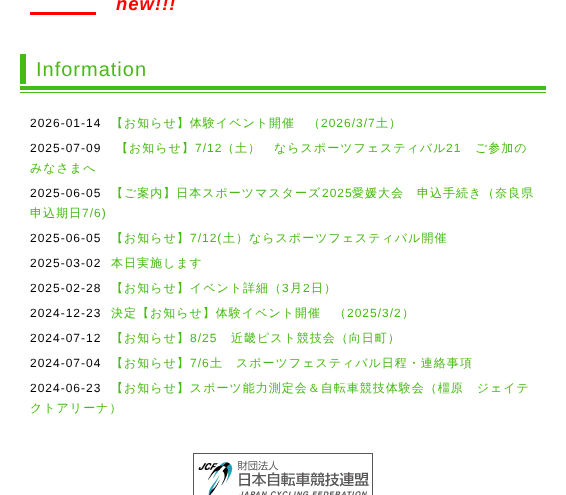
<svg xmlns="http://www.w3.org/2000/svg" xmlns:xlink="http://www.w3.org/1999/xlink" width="566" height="495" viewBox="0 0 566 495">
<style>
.cls-1{font:italic bold 18.5px Liberation Sans;letter-spacing:1px;fill:#ff0000}
.cls-2{font:20px Liberation Sans;letter-spacing:1px;fill:#48ba15}
.cls-3{font:12px Liberation Sans;letter-spacing:1px;fill:#000000}
.cls-4{font:500 12px WenQuanYi Zen Hei;letter-spacing:1px;fill:#48ba15}
.cls-5{font:12px Liberation Sans;letter-spacing:1px;fill:#48ba15}
</style>
<rect width="100%" height="100%" fill="#ffffff"/>
<rect fill="#ff0000" x="30" y="12" width="66" height="3"/>
<rect fill="#48ba15" x="20" y="54" width="6" height="30"/>
<rect fill="#48ba15" x="20" y="86" width="526" height="4"/>
<rect fill="#48ba15" x="20" y="92" width="526" height="1"/>
<image xlink:href="image0.png" x="193" y="453" width="180" height="42"/>
<text class="cls-1" x="116" y="10">new!!!</text>
<text class="cls-2" x="36" y="76">Information</text>
<text class="cls-3" x="30" y="127">2026-01-14</text>
<text class="cls-4" x="111" y="127">【お知らせ】体験イベント開催　（</text>
<text class="cls-5" x="321" y="127">2026/3/7</text>
<text class="cls-4" x="376" y="127">土）</text>
<text class="cls-3" x="30" y="152">2025-07-09</text>
<text class="cls-4" x="116" y="152">【お知らせ】</text>
<text class="cls-5" x="195" y="152">7/12</text>
<text class="cls-4" x="222" y="152">（土）　ならスポーツフェスティバル</text>
<text class="cls-5" x="446" y="152">21</text>
<text class="cls-4" x="475" y="152">ご参加の</text>
<text class="cls-4" x="30" y="172">みなさまへ</text>
<text class="cls-3" x="30" y="197">2025-06-05</text>
<text class="cls-4" x="111" y="197">【ご案内】日本スポーツマスターズ</text>
<text class="cls-5" x="322" y="197">2025</text>
<text class="cls-4" x="352" y="197">愛媛大会　申込手続き（奈良県</text>
<text class="cls-4" x="30" y="217">申込期日</text>
<text class="cls-5" x="82" y="217">7/6)</text>
<text class="cls-3" x="30" y="242">2025-06-05</text>
<text class="cls-4" x="111" y="242">【お知らせ】</text>
<text class="cls-5" x="190" y="242">7/12(</text>
<text class="cls-4" x="223" y="242">土）ならスポーツフェスティバル開催</text>
<text class="cls-3" x="30" y="267">2025-03-02</text>
<text class="cls-4" x="111" y="267">本日実施します</text>
<text class="cls-3" x="30" y="292">2025-02-28</text>
<text class="cls-4" x="111" y="292">【お知らせ】イベント詳細（</text>
<text class="cls-5" x="282" y="292">3</text>
<text class="cls-4" x="290" y="292">月</text>
<text class="cls-5" x="303" y="292">2</text>
<text class="cls-4" x="311" y="292">日）</text>
<text class="cls-3" x="30" y="317">2024-12-23</text>
<text class="cls-4" x="111" y="317">決定【お知らせ】体験イベント開催　（</text>
<text class="cls-5" x="347" y="317">2025/3/2</text>
<text class="cls-4" x="402" y="317">）</text>
<text class="cls-3" x="30" y="342">2024-07-12</text>
<text class="cls-4" x="111" y="342">【お知らせ】</text>
<text class="cls-5" x="190" y="342">8/25</text>
<text class="cls-4" x="231" y="342">近畿ピスト競技会（向日町）</text>
<text class="cls-3" x="30" y="367">2024-07-04</text>
<text class="cls-4" x="111" y="367">【お知らせ】</text>
<text class="cls-5" x="190" y="367">7/6</text>
<text class="cls-4" x="210" y="367">土　スポーツフェスティバル日程・連絡事項</text>
<text class="cls-3" x="30" y="392">2024-06-23</text>
<text class="cls-4" x="111" y="392">【お知らせ】スポーツ能力測定会＆自転車競技体験会（橿原　ジェイテ</text>
<text class="cls-4" x="30" y="412">クトアリーナ）</text>
</svg>
